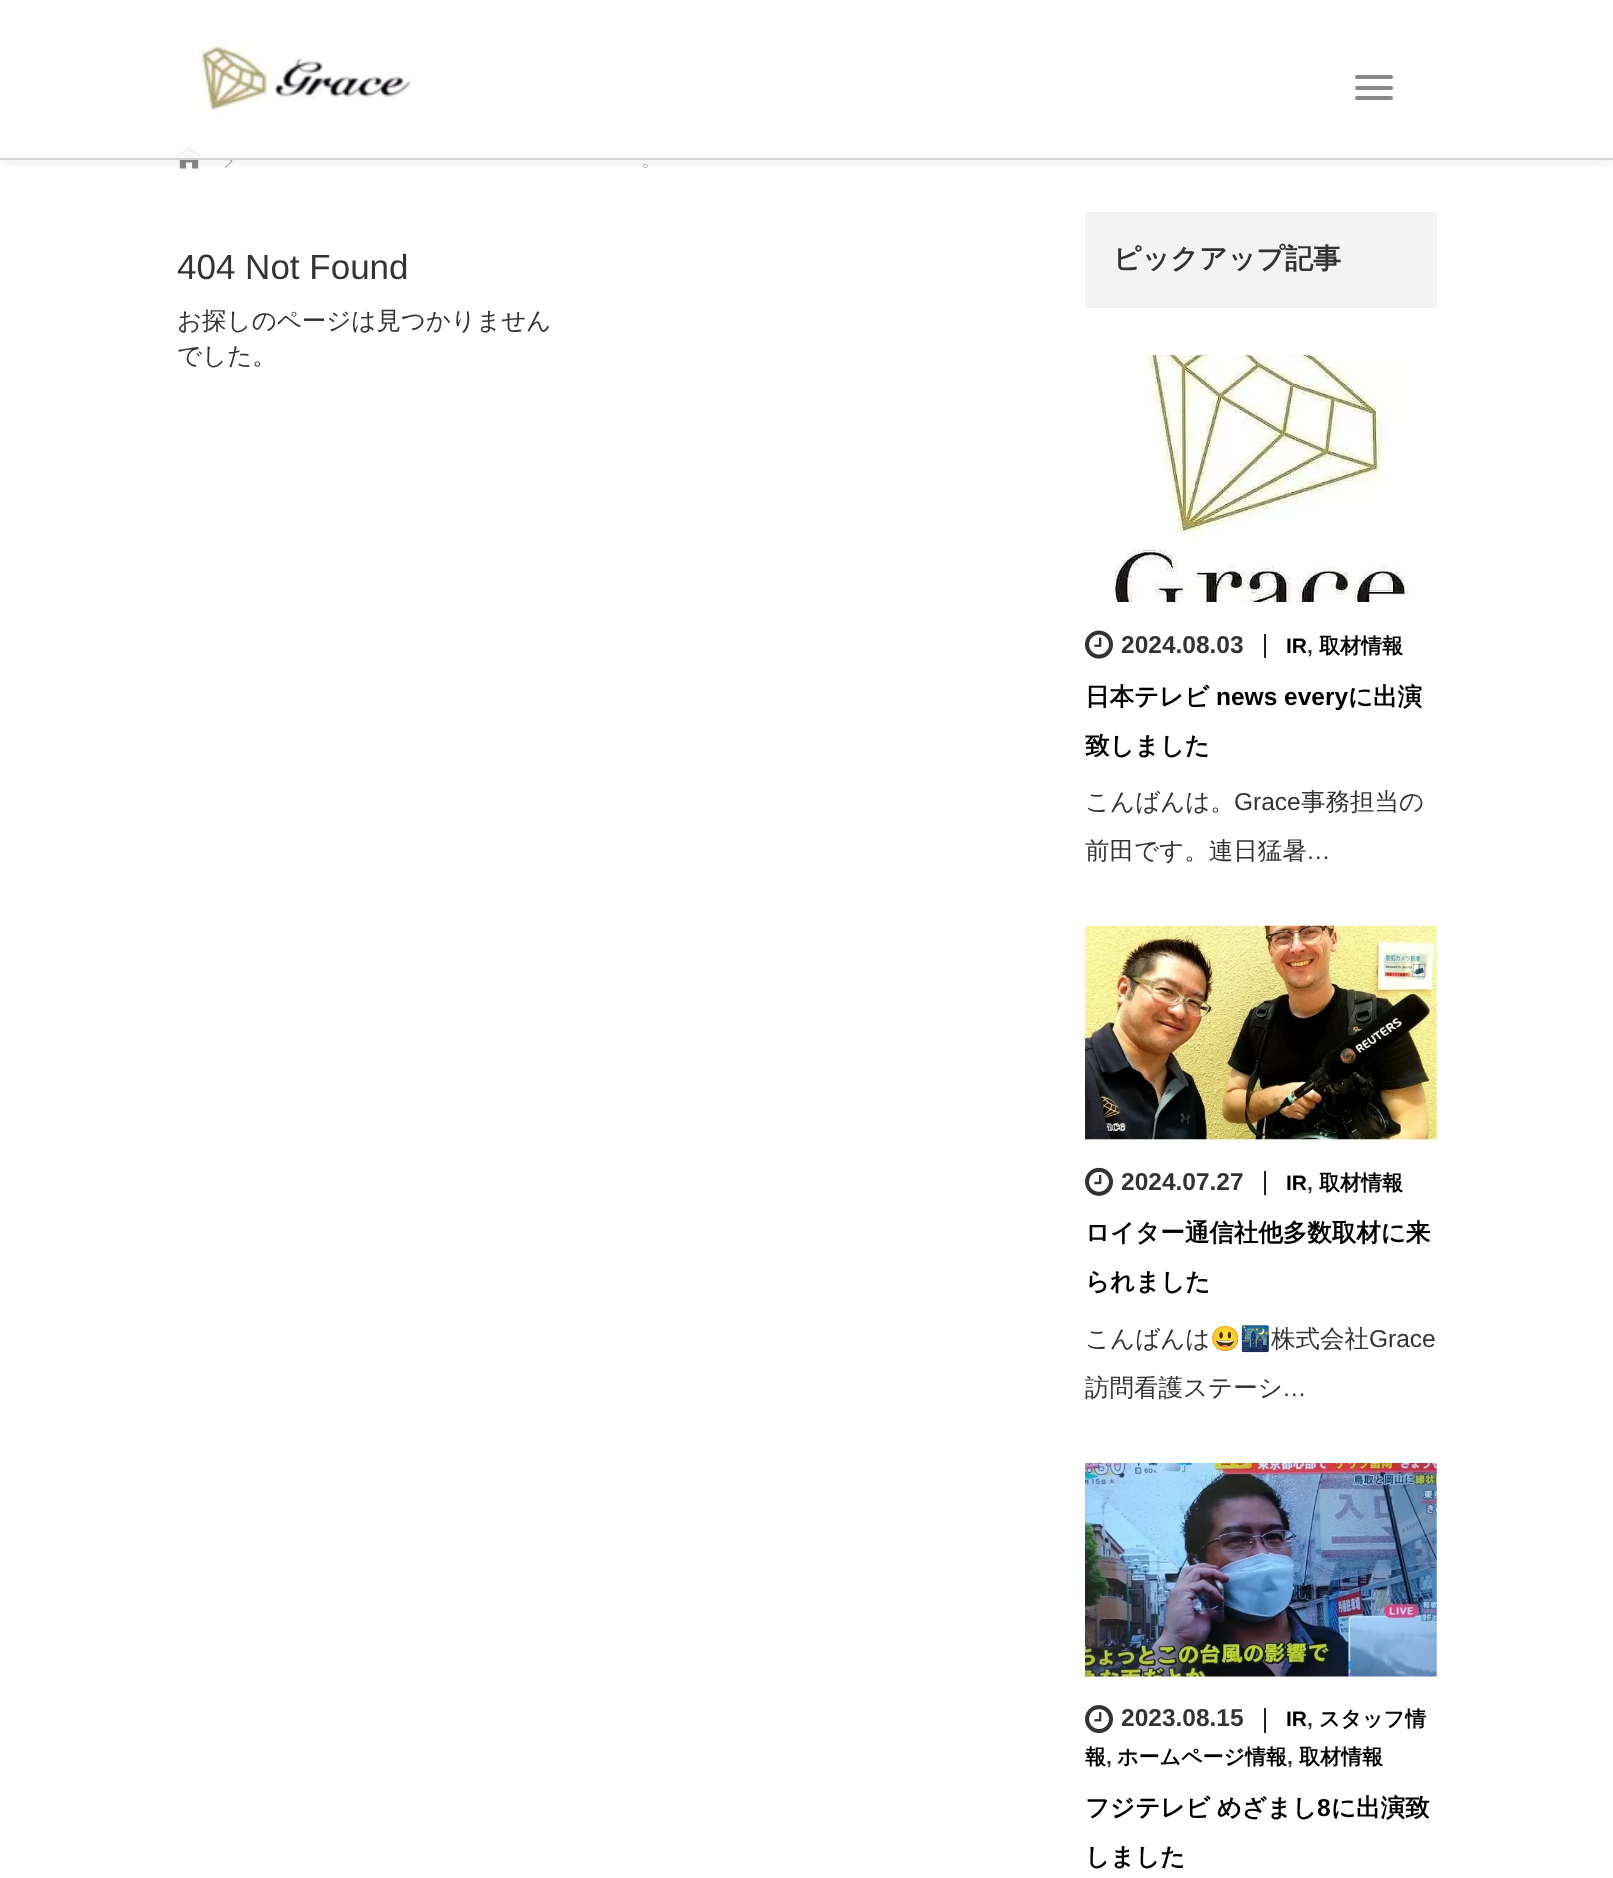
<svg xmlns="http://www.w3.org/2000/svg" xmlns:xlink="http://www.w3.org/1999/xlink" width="1613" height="1878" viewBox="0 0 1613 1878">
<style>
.cls-1{font:500 21px WenQuanYi Zen Hei;fill:#aaaaaa}
.cls-2{font:35px Liberation Sans;fill:#333333}
.cls-3{font:500 24.5px WenQuanYi Zen Hei;fill:#333333}
.cls-4{font:bold 28px WenQuanYi Zen Hei;fill:#333333}
.cls-5{font:bold 24.5px Liberation Sans;fill:#333333}
.cls-6{font:bold 21px Liberation Sans;fill:#000000}
.cls-7{font:bold 21px Liberation Sans;fill:#333333}
.cls-8{font:bold 21px WenQuanYi Zen Hei;fill:#000000}
.cls-9{font:bold 24.5px WenQuanYi Zen Hei;fill:#000000}
.cls-10{font:bold 24.5px Liberation Sans;fill:#000000}
.cls-11{font:24.5px Liberation Sans;fill:#333333}
.cls-12{font:24.5px Noto Color Emoji;fill:#333333}
</style>
<defs>
<clipPath id="clip1"><rect x="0" y="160" width="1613" height="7"/></clipPath>
</defs>
<rect width="100%" height="100%" fill="#ffffff"/>
<image xlink:href="image1.png" x="176" y="146" width="26" height="23"/>
<image xlink:href="image2.png" x="225" y="154" width="8" height="14"/>
<g clip-path="url(#clip1)">
<rect fill="#000000" fill-opacity="0.08" filter="blur(9px)" x="-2" y="-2" width="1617" height="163"/>
</g>
<rect fill="#ffffff" fill-opacity="0.9" x="176" y="146" width="54" height="12"/>
<rect fill="#d3d3d3" x="0" y="158" width="1613" height="2"/>
<image xlink:href="image0.png" x="198" y="37" width="216" height="78"/>
<rect fill="#888888" x="1355" y="75" width="38" height="4" rx="2"/>
<rect fill="#888888" x="1355" y="86" width="38" height="4" rx="2"/>
<rect fill="#888888" x="1355" y="96" width="38" height="4" rx="2"/>
<rect fill="#f3f3f3" x="1085" y="212" width="352" height="96"/>
<image xlink:href="image3.png" x="1113" y="355" width="297" height="247"/>
<image xlink:href="image4.png" x="1085" y="630" width="28" height="29"/>
<rect fill="#222222" x="1264" y="634" width="2" height="24"/>
<image xlink:href="image5.png" x="1085" y="925" width="352" height="215"/>
<image xlink:href="image6.png" x="1085" y="1167" width="28" height="29"/>
<rect fill="#222222" x="1264" y="1171" width="2" height="24"/>
<image xlink:href="image7.png" x="1085" y="1463" width="352" height="214"/>
<image xlink:href="image8.png" x="1085" y="1705" width="28" height="29"/>
<rect fill="#222222" x="1264" y="1708" width="2" height="25"/>
<text class="cls-1" x="641" y="166">。</text>
<text class="cls-2" x="177" y="279">404 Not Found</text>
<text class="cls-3"><tspan x="177" y="329">お探しのページは見つかりません</tspan><tspan x="177" y="364">でした。</tspan></text>
<text class="cls-4" x="1113" y="268">ピックアップ記事</text>
<text class="cls-5" x="1121" y="653">2024.08.03</text>
<text class="cls-6" x="1286" y="653">IR</text>
<text class="cls-7" x="1307" y="653">,</text>
<text class="cls-8" x="1319" y="653">取材情報</text>
<text class="cls-9" x="1085" y="705">日本テレビ</text>
<text class="cls-10" x="1216" y="705">news every</text>
<text class="cls-9" x="1348" y="705">に出演</text>
<text class="cls-9" x="1085" y="754">致しました</text>
<text class="cls-3" x="1085" y="810">こんばんは。</text>
<text class="cls-11" x="1234" y="810">Grace</text>
<text class="cls-3" x="1301" y="810">事務担当の</text>
<text class="cls-3" x="1085" y="859">前田です。連日猛暑</text>
<text class="cls-11" x="1306" y="859">…</text>
<text class="cls-5" x="1121" y="1190">2024.07.27</text>
<text class="cls-6" x="1286" y="1190">IR</text>
<text class="cls-7" x="1307" y="1190">,</text>
<text class="cls-8" x="1319" y="1190">取材情報</text>
<text class="cls-9" x="1085" y="1241">ロイター通信社他多数取材に来</text>
<text class="cls-9" x="1085" y="1290">られました</text>
<text class="cls-3" x="1085" y="1347">こんばんは</text>
<text class="cls-12" x="1210" y="1347">😃🌃</text>
<text class="cls-3" x="1271" y="1347">株式会社</text>
<text class="cls-11" x="1369" y="1347">Grace</text>
<text class="cls-3" x="1085" y="1396">訪問看護ステーシ</text>
<text class="cls-11" x="1282" y="1396">…</text>
<text class="cls-5" x="1121" y="1726">2023.08.15</text>
<text class="cls-6" x="1286" y="1726">IR</text>
<text class="cls-7" x="1307" y="1726">,</text>
<text class="cls-8" x="1319" y="1726">スタッフ情</text>
<text class="cls-8" x="1085" y="1764">報</text>
<text class="cls-7" x="1106" y="1764">,</text>
<text class="cls-8" x="1117" y="1764">ホームページ情報</text>
<text class="cls-7" x="1287" y="1764">,</text>
<text class="cls-8" x="1299" y="1764">取材情報</text>
<text class="cls-9" x="1085" y="1816" word-spacing="-1">フジテレビ めざまし</text>
<text class="cls-10" x="1317" y="1816">8</text>
<text class="cls-9" x="1331" y="1816">に出演致</text>
<text class="cls-9" x="1085" y="1865">しました</text>
</svg>
